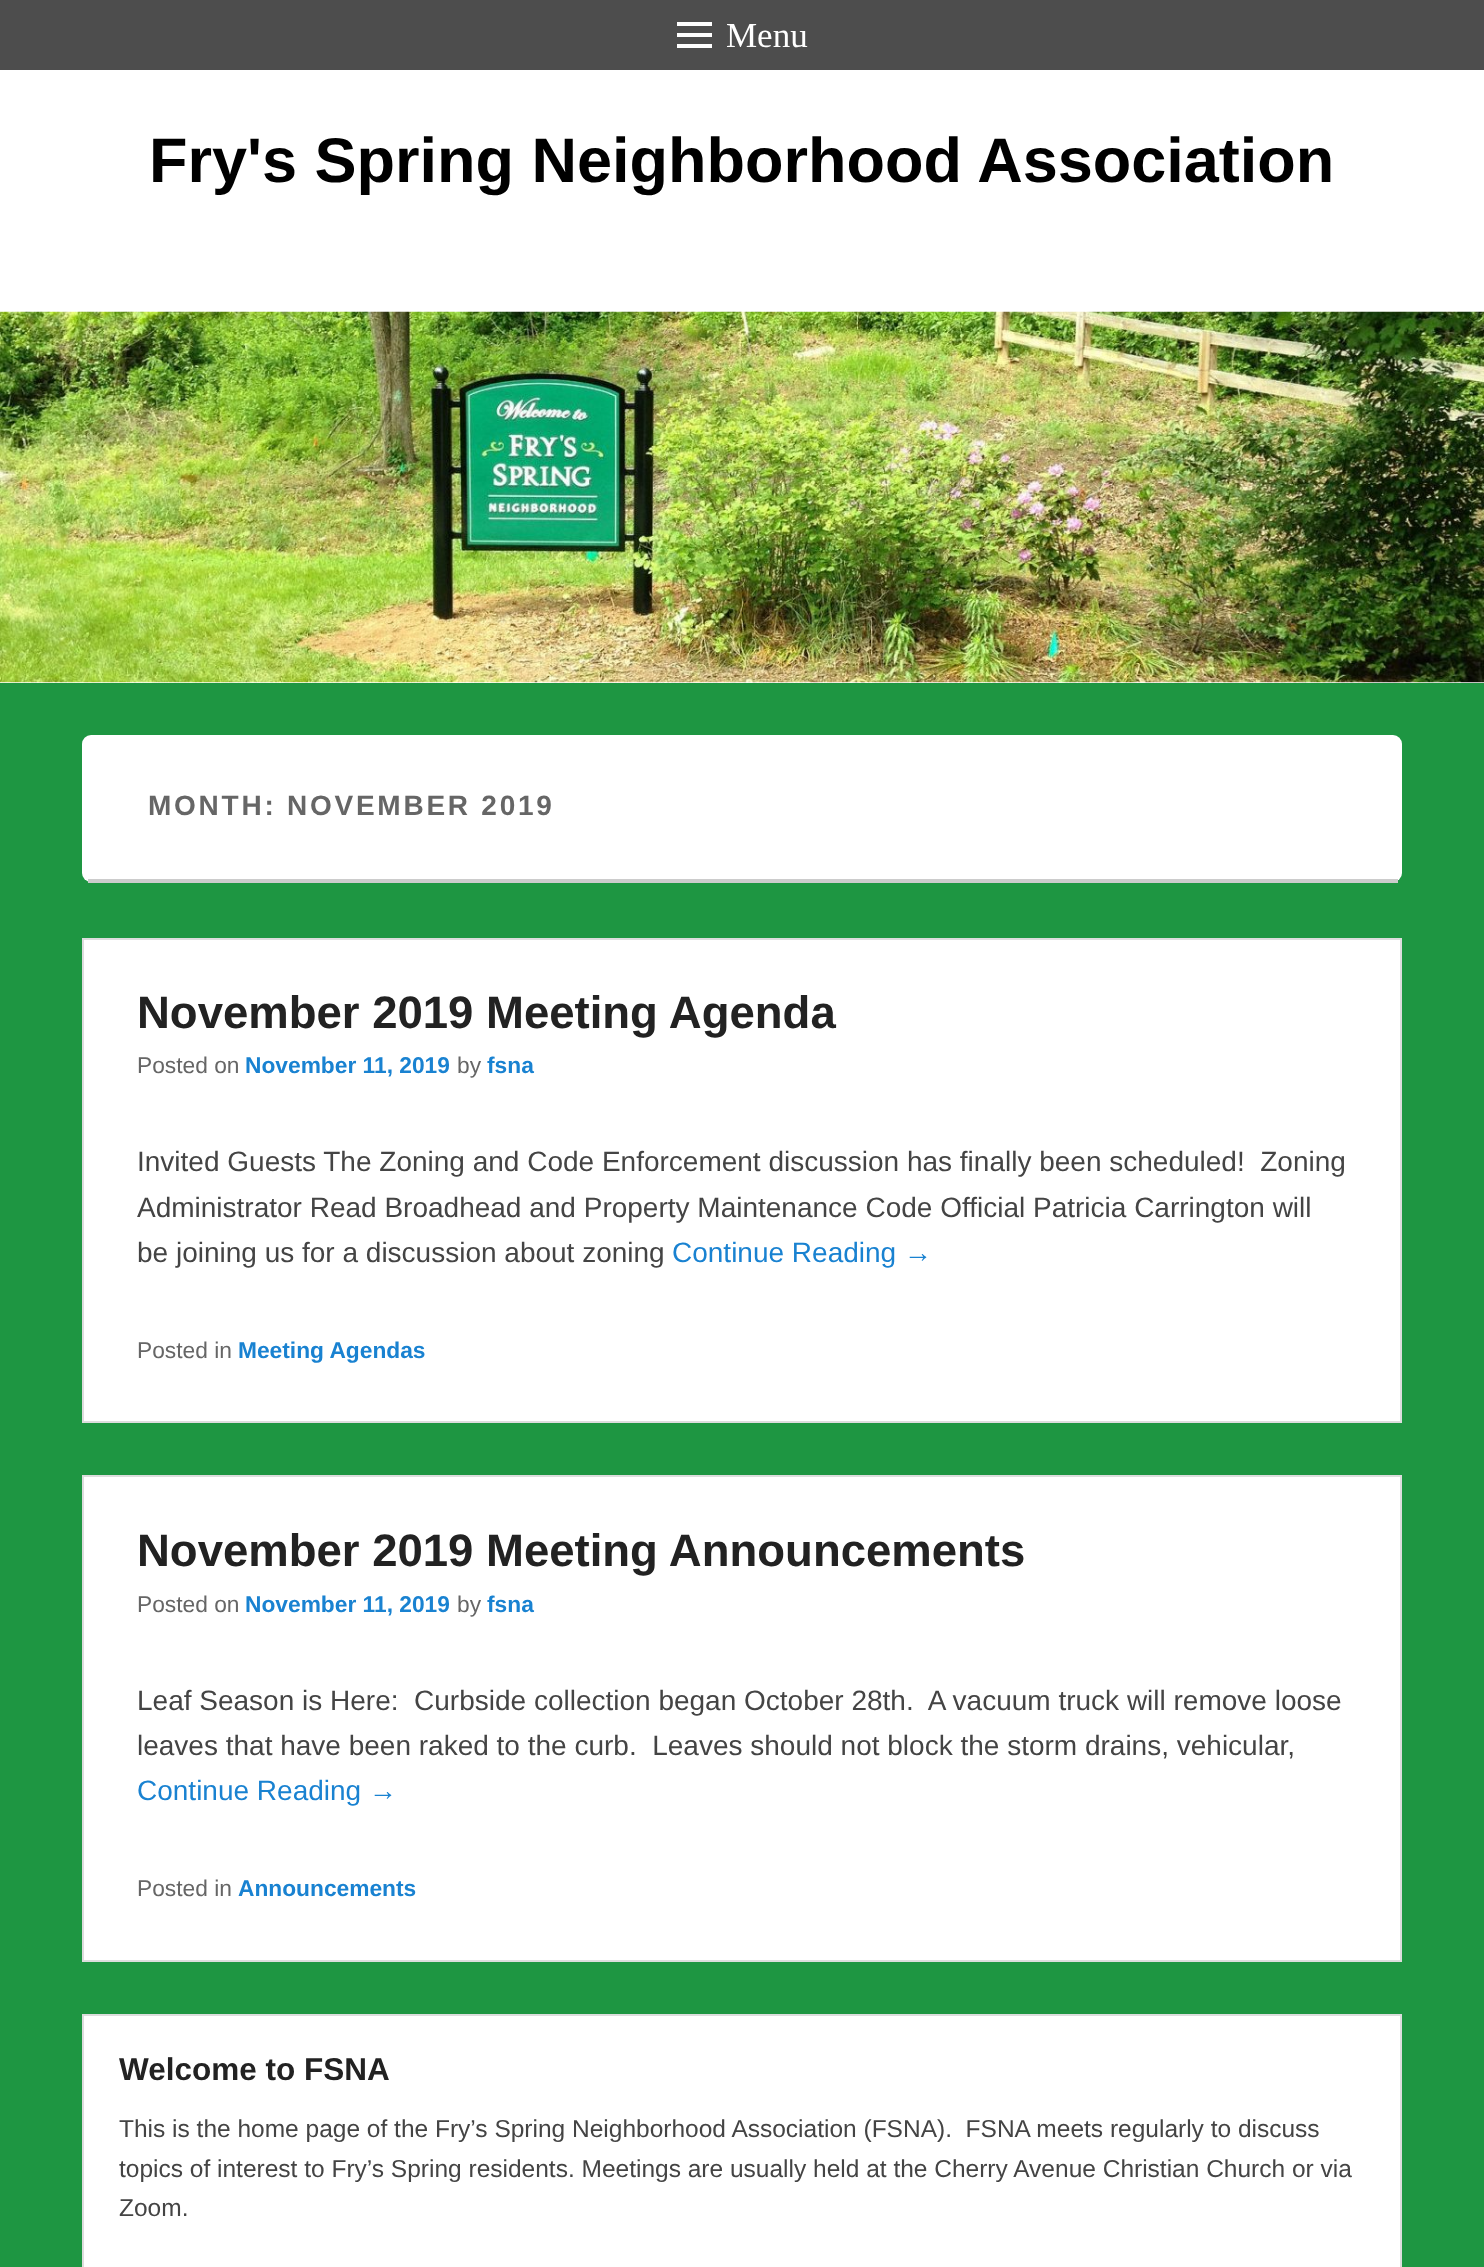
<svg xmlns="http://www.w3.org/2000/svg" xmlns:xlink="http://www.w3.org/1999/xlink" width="1484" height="2267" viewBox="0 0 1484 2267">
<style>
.cls-1{font:35px Liberation Serif;fill:#ffffff}
.cls-2{font:bold 63px Liberation Sans;fill:#000000}
.cls-3{font:bold 28px Liberation Sans;letter-spacing:2.75px;fill:#666666}
.cls-4{font:bold 45.5px Liberation Sans;fill:#222222}
.cls-5{font:22.75px Liberation Sans;fill:#666666}
.cls-6{font:bold 22.75px Liberation Sans;fill:#1982d1}
.cls-7{font:28px Liberation Sans;fill:#444444}
.cls-8{font:28px Liberation Sans;fill:#1982d1}
.cls-9{font:bold 31.5px Liberation Sans;fill:#222222}
.cls-10{font:24.5px Liberation Sans;fill:#444444}
</style>
<rect width="100%" height="100%" fill="#1e9642"/>
<rect fill="#4d4d4d" x="0" y="0" width="1484" height="70"/>
<path fill="#ffffff" d="M677 48V44H712V48ZM677 22H712V26H677ZM677 37V33H712V37Z"/>
<rect fill="#ffffff" x="0" y="70" width="1484" height="613"/>
<image xlink:href="image0.png" x="0" y="311" width="1484" height="372"/>
<rect fill="#ffffff" x="82" y="735" width="1320" height="147" rx="9"/>
<rect fill="#cccccc" x="88" y="879" width="1310" height="4"/>
<rect fill="#ffffff" stroke="#dddddd" stroke-width="2" x="83" y="939" width="1318" height="483"/>
<rect fill="#ffffff" stroke="#dddddd" stroke-width="2" x="83" y="1476" width="1318" height="485"/>
<rect fill="#ffffff" stroke="#dddddd" stroke-width="2" x="83" y="2015" width="1318" height="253"/>
<text class="cls-1" x="726" y="47">Menu</text>
<text class="cls-2" x="149" y="182">Fry's Spring Neighborhood Association</text>
<text class="cls-3" x="148" y="815">MONTH: NOVEMBER 2019</text>
<text class="cls-4" x="137" y="1028">November 2019 Meeting Agenda</text>
<text class="cls-5" x="137" y="1073">Posted on</text>
<text class="cls-6" x="245" y="1073">November 11, 2019</text>
<text class="cls-5" x="457" y="1073">by</text>
<text class="cls-6" x="487" y="1073">fsna</text>
<text class="cls-7" xml:space="preserve"><tspan x="137" y="1171">Invited Guests The Zoning and Code Enforcement discussion has finally been scheduled!  Zoning</tspan><tspan x="137" y="1217">Administrator Read Broadhead and Property Maintenance Code Official Patricia Carrington will</tspan><tspan x="137" y="1262">be joining us for a discussion about zoning</tspan></text>
<text class="cls-8" x="672" y="1262">Continue Reading →</text>
<text class="cls-5" x="137" y="1358">Posted in</text>
<text class="cls-6" x="238" y="1358">Meeting Agendas</text>
<text class="cls-4" x="137" y="1566">November 2019 Meeting Announcements</text>
<text class="cls-5" x="137" y="1612">Posted on</text>
<text class="cls-6" x="245" y="1612">November 11, 2019</text>
<text class="cls-5" x="457" y="1612">by</text>
<text class="cls-6" x="487" y="1612">fsna</text>
<text class="cls-7" xml:space="preserve"><tspan x="137" y="1710">Leaf Season is Here:  Curbside collection began October 28th.  A vacuum truck will remove loose</tspan><tspan x="137" y="1755">leaves that have been raked to the curb.  Leaves should not block the storm drains, vehicular,</tspan></text>
<text class="cls-8" x="137" y="1800">Continue Reading →</text>
<text class="cls-5" x="137" y="1896">Posted in</text>
<text class="cls-6" x="238" y="1896">Announcements</text>
<text class="cls-9" x="119" y="2080">Welcome to FSNA</text>
<text class="cls-10" xml:space="preserve"><tspan x="119" y="2137">This is the home page of the Fry’s Spring Neighborhood Association (FSNA).  FSNA meets regularly to discuss</tspan><tspan x="119" y="2177">topics of interest to Fry’s Spring residents. Meetings are usually held at the Cherry Avenue Christian Church or via</tspan><tspan x="119" y="2216">Zoom.</tspan></text>
</svg>
